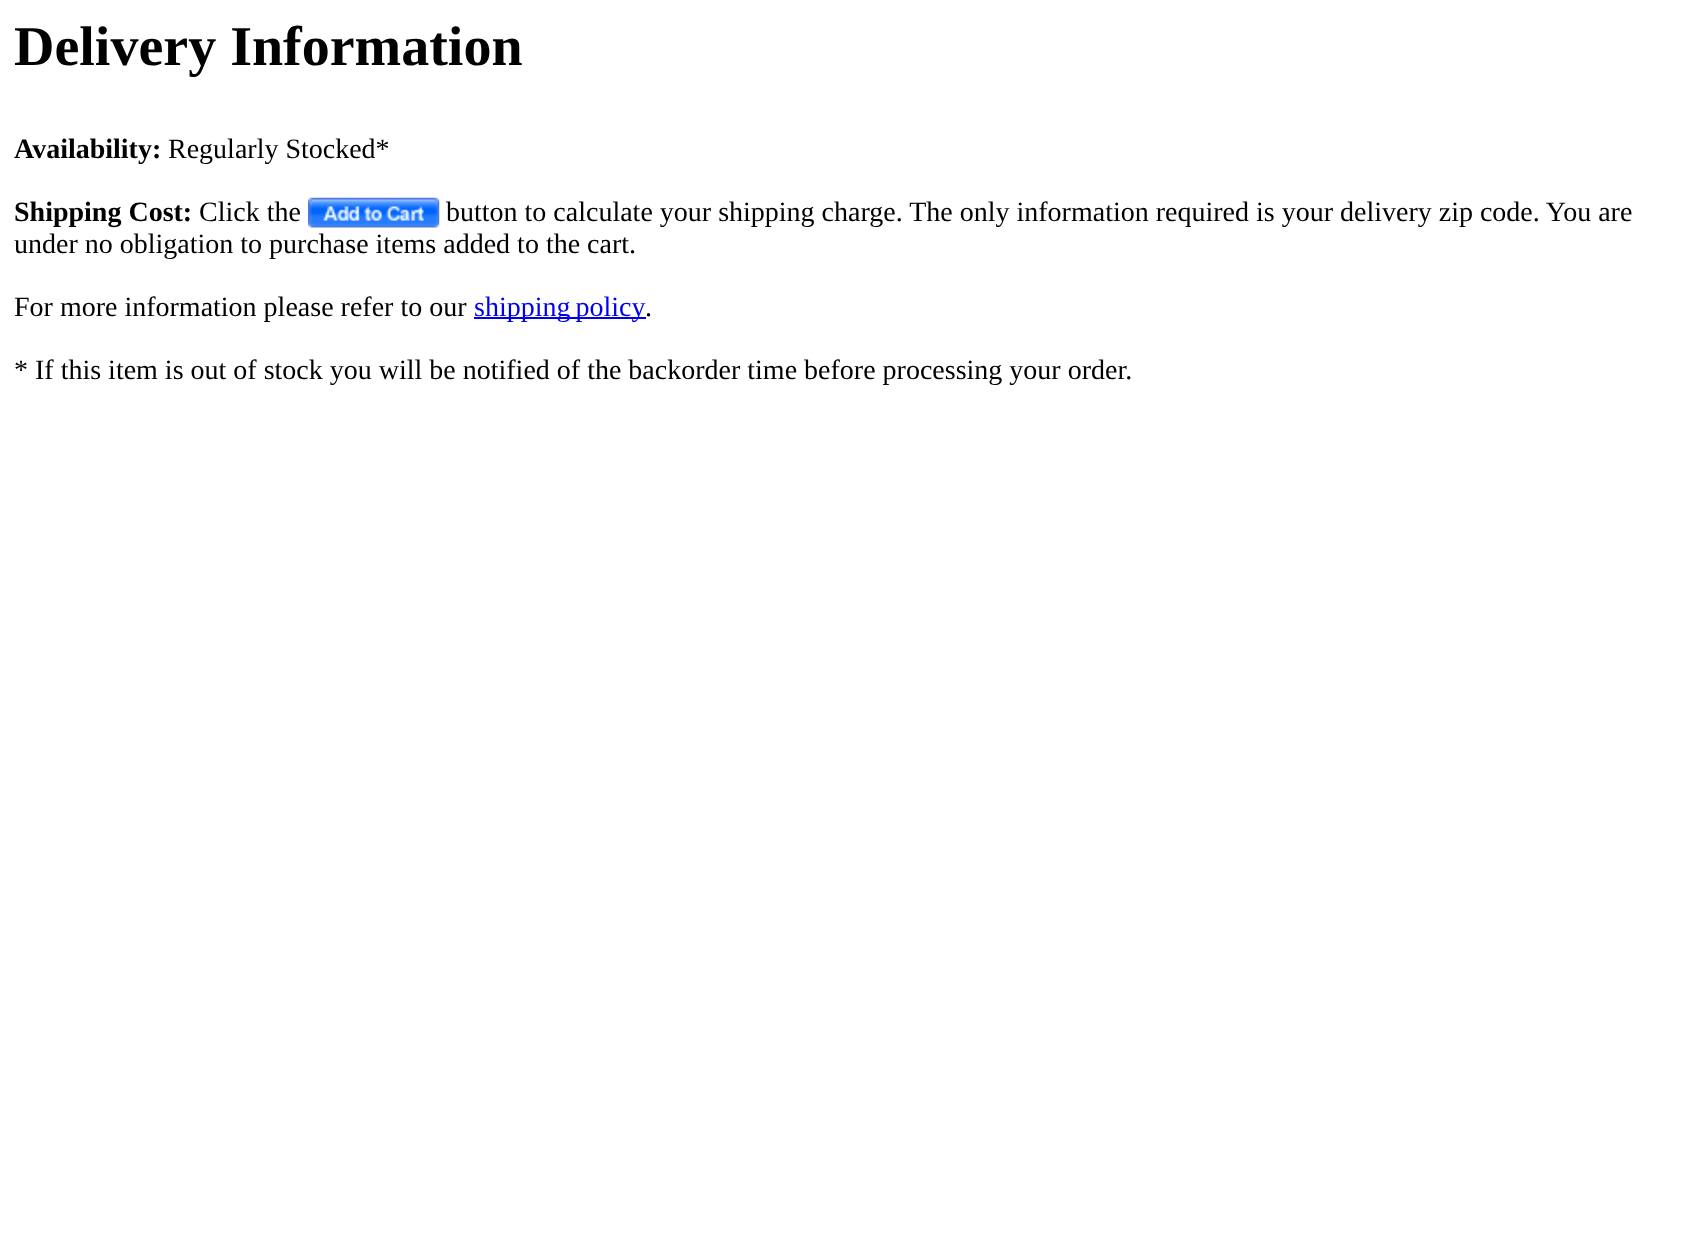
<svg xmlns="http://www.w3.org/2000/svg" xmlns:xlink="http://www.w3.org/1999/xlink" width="1691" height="1256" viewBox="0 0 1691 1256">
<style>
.cls-1{font:bold 56px Liberation Serif;fill:#000000}
.cls-2{font:bold 28px Liberation Serif;fill:#000000}
.cls-3{font:28px Liberation Serif;fill:#000000}
.cls-4{font:28px Liberation Serif;fill:#0000ee}
</style>
<rect width="100%" height="100%" fill="#ffffff"/>
<image xlink:href="image0.png" x="308" y="197" width="132" height="31"/>
<rect fill="#0000ee" x="474" y="317" width="172" height="2"/>
<text class="cls-1" x="14" y="65">Delivery Information</text>
<text class="cls-2" x="14" y="158">Availability:</text>
<text class="cls-3" x="168" y="158">Regularly Stocked*</text>
<text class="cls-2" x="14" y="221">Shipping Cost:</text>
<text class="cls-3" x="199" y="221">Click the</text>
<text class="cls-3" x="446" y="221">button to calculate your shipping charge. The only information required is your delivery zip code. You are</text>
<text class="cls-3" x="14" y="253">under no obligation to purchase items added to the cart.</text>
<text class="cls-3" x="14" y="316">For more information please refer to our</text>
<text class="cls-4" x="474" y="316" word-spacing="-2">shipping policy</text>
<text class="cls-3" x="645" y="316">.</text>
<text class="cls-3" x="14" y="379">* If this item is out of stock you will be notified of the backorder time before processing your order.</text>
</svg>
